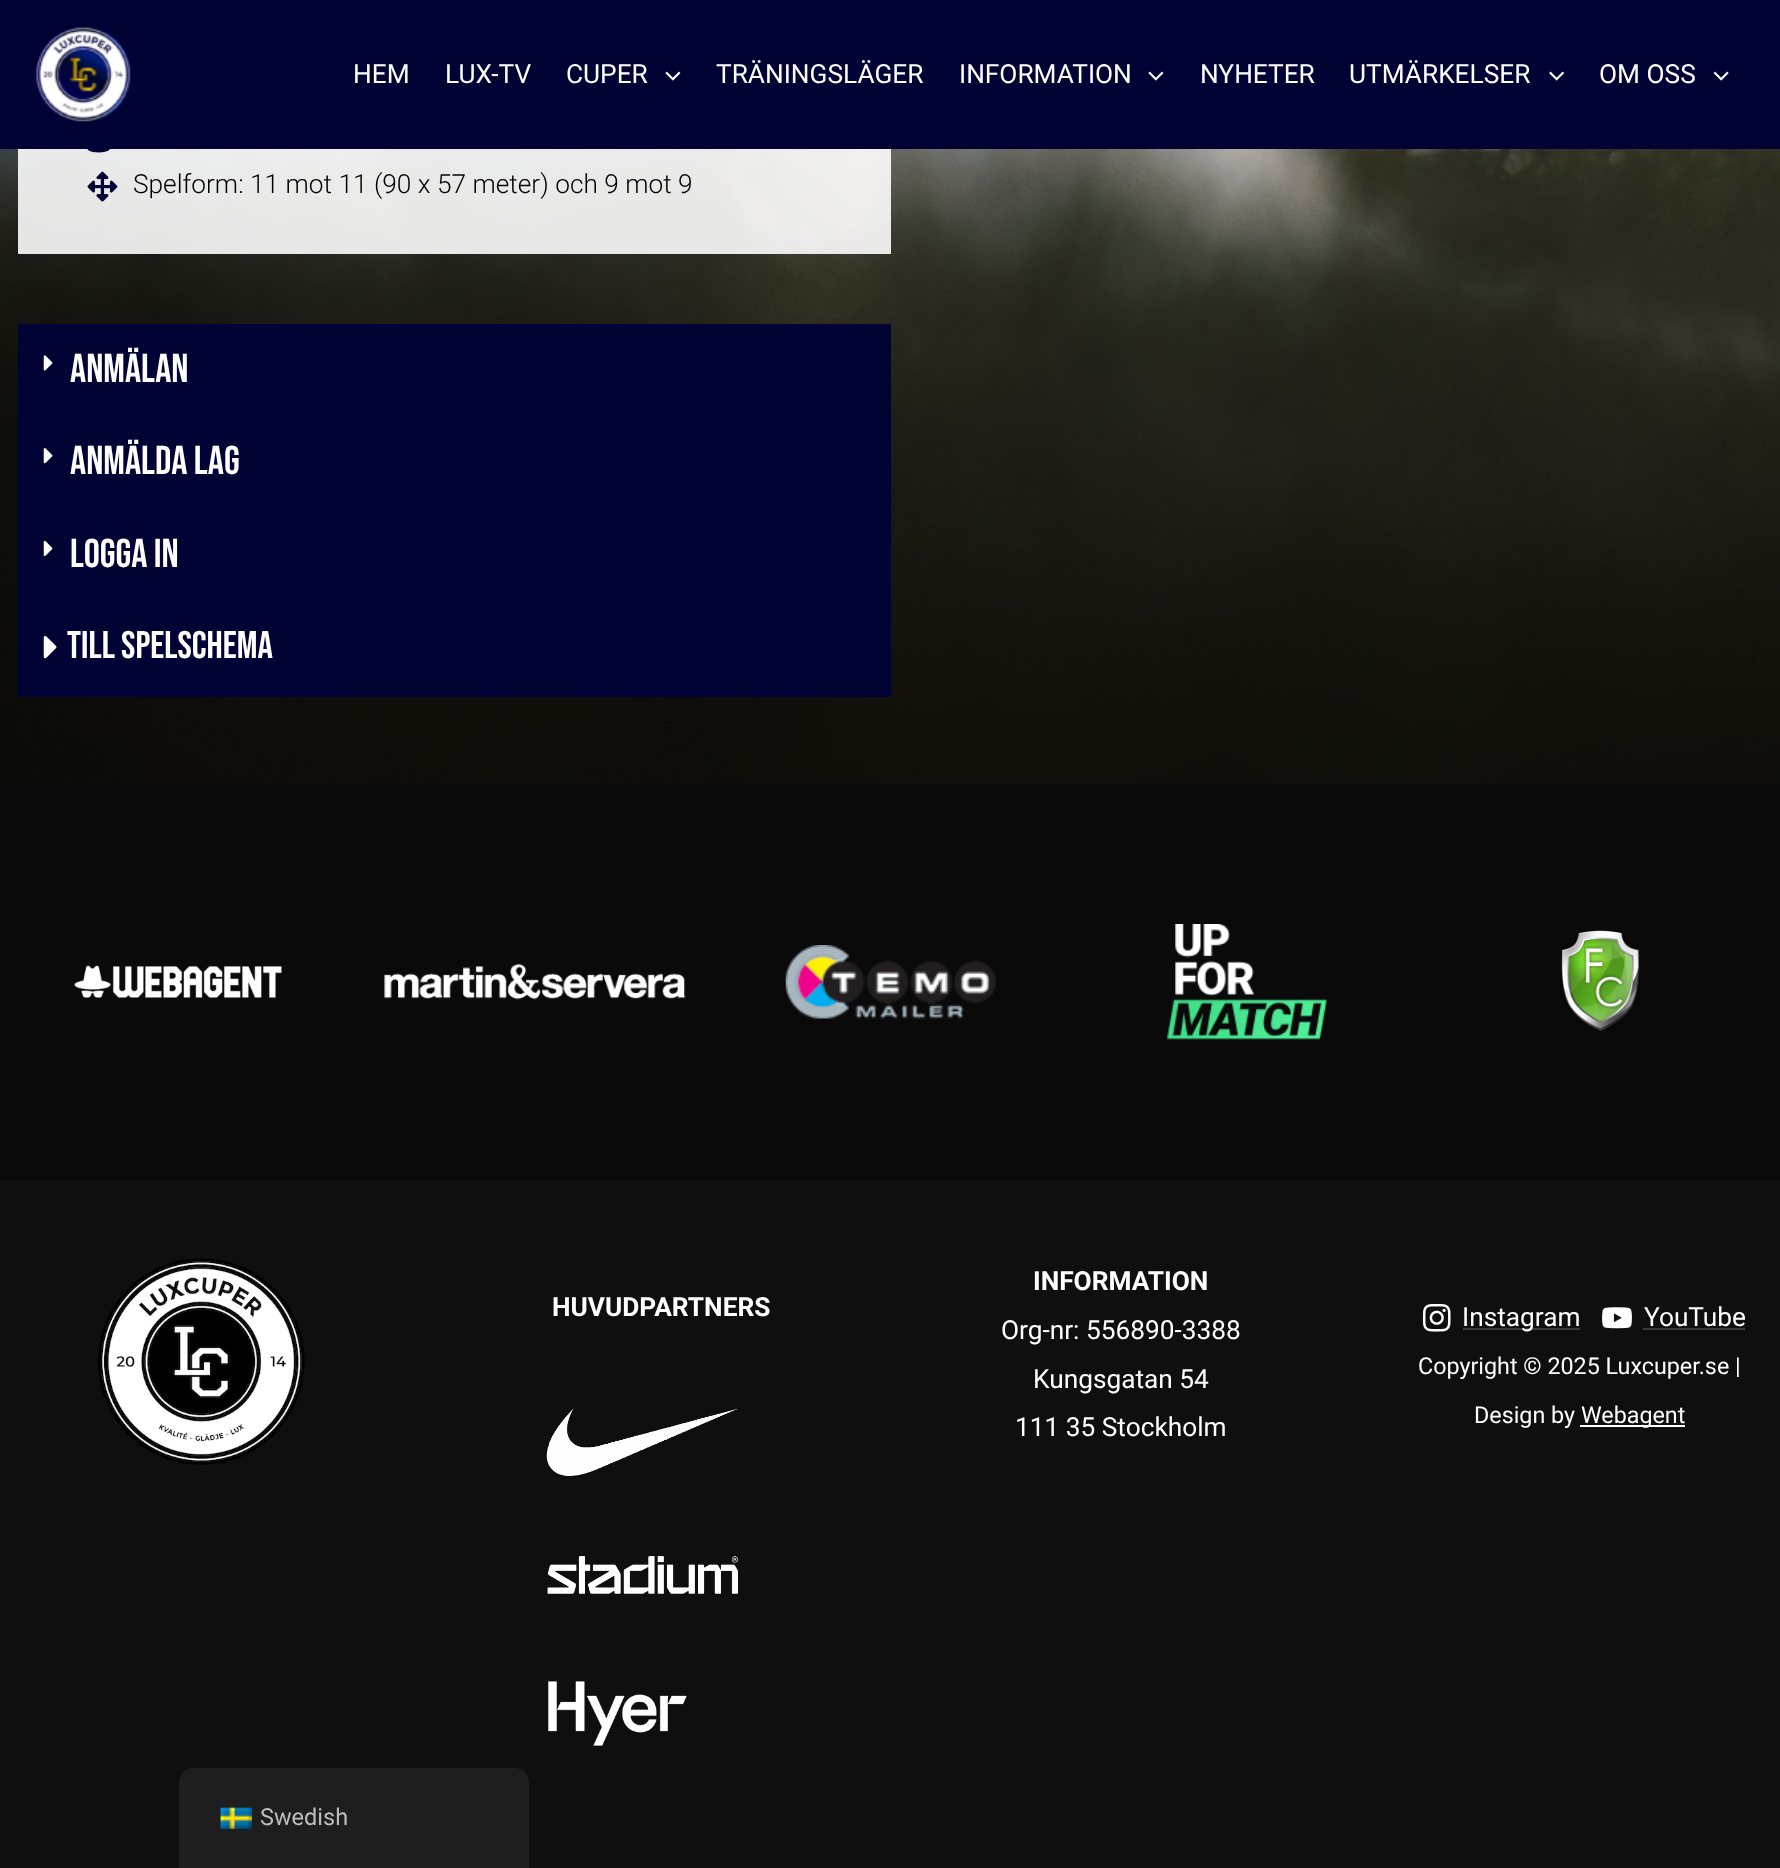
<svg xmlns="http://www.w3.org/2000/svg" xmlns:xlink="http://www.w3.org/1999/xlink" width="1780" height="1868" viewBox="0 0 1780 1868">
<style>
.cls-1{font:26.25px Roboto;fill:#ffffff}
.cls-2{font:300 26.25px Roboto;fill:#000000}
.cls-3{font:40.25px Bebas Neue;fill:#ffffff}
.cls-4{font:38.5px Bebas Neue;fill:#ffffff}
.cls-5{font:bold 26.25px Roboto;fill:#ffffff}
.cls-6{font:23.3px Roboto;fill:#ffffff}
.cls-7{font:23.5px Roboto;fill:#bdbdbd}
</style>
<rect width="100%" height="100%" fill="#0f0f0f"/>
<rect fill="#000333" x="0" y="0" width="1780" height="149"/>
<image xlink:href="image0.png" x="35" y="26" width="97" height="96"/>
<image xlink:href="image1.png" x="665" y="71" width="16" height="10"/>
<image xlink:href="image1.png" x="1148" y="71" width="16" height="10"/>
<image xlink:href="image2.png" x="1549" y="71" width="16" height="10"/>
<image xlink:href="image3.png" x="1713" y="71" width="16" height="10"/>
<image xlink:href="image4.png" x="0" y="149" width="1780" height="635"/>
<rect fill="#ffffff" fill-opacity="0.89" x="18" y="149" width="873" height="105"/>
<image xlink:href="image5.png" x="87" y="149" width="23" height="4"/>
<image xlink:href="image6.png" x="87" y="171" width="31" height="31"/>
<rect fill="#000333" x="18" y="324" width="873" height="373"/>
<image xlink:href="image7.png" x="43" y="355" width="10" height="16"/>
<image xlink:href="image8.png" x="43" y="448" width="10" height="16"/>
<image xlink:href="image9.png" x="43" y="540" width="10" height="16"/>
<image xlink:href="image10.png" x="43" y="635" width="14" height="24"/>
<rect fill="#0a0a0a" x="0" y="784" width="1780" height="396"/>
<image xlink:href="image11.png" x="74" y="965" width="208" height="33"/>
<image xlink:href="image12.png" x="384" y="964" width="302" height="36"/>
<image xlink:href="image13.png" x="785" y="945" width="211" height="74"/>
<image xlink:href="image14.png" x="1167" y="924" width="160" height="116"/>
<image xlink:href="image15.png" x="1561" y="930" width="79" height="101"/>
<image xlink:href="image16.png" x="98" y="1258" width="207" height="207"/>
<image xlink:href="image17.png" x="546" y="1408" width="192" height="68"/>
<image xlink:href="image18.png" x="547" y="1556" width="191" height="38"/>
<image xlink:href="image19.png" x="548" y="1681" width="139" height="65"/>
<image xlink:href="image20.png" x="1422" y="1303" width="29" height="29"/>
<rect fill="#3a3a3a" x="1463" y="1328" width="117" height="2"/>
<image xlink:href="image21.png" x="1602" y="1307" width="30" height="22"/>
<rect fill="#3a3a3a" x="1643" y="1328" width="102" height="2"/>
<rect fill="#ffffff" x="1580" y="1425" width="105" height="2"/>
<path fill="#1e1e1e" d="M193 1768H515C522.5 1768 529 1774.5 529 1782V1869H179V1782C179 1774.5 185.5 1768 193 1768Z"/>
<image xlink:href="image22.png" x="220" y="1807" width="32" height="22"/>
<text class="cls-1" x="353" y="83">HEM</text>
<text class="cls-1" x="445" y="83">LUX-TV</text>
<text class="cls-1" x="566" y="83">CUPER</text>
<text class="cls-1" x="716" y="83">TRÄNINGSLÄGER</text>
<text class="cls-1" x="959" y="83">INFORMATION</text>
<text class="cls-1" x="1200" y="83">NYHETER</text>
<text class="cls-1" x="1349" y="83">UTMÄRKELSER</text>
<text class="cls-1" x="1599" y="83">OM OSS</text>
<text class="cls-2" x="133" y="193">Spelform: 11 mot 11 (90 x 57 meter) och 9 mot 9</text>
<text class="cls-3" x="70" y="382">ANMÄLAN</text>
<text class="cls-3" x="70" y="474">ANMÄLDA LAG</text>
<text class="cls-3" x="70" y="567">LOGGA IN</text>
<text class="cls-4" x="67" y="658">TILL SPELSCHEMA</text>
<text class="cls-5" x="552" y="1316">HUVUDPARTNERS</text>
<text class="cls-5" x="1033" y="1290">INFORMATION</text>
<text class="cls-1" x="1001" y="1339">Org-nr: 556890-3388</text>
<text class="cls-1" x="1033" y="1388">Kungsgatan 54</text>
<text class="cls-1" x="1015" y="1436">111 35 Stockholm</text>
<text class="cls-1" x="1462" y="1326">Instagram</text>
<text class="cls-1" x="1644" y="1326">YouTube</text>
<text class="cls-6" x="1418" y="1374">Copyright © 2025 Luxcuper.se |</text>
<text class="cls-6" x="1474" y="1423">Design by</text>
<text class="cls-6" x="1581" y="1423">Webagent</text>
<text class="cls-7" x="260" y="1825">Swedish</text>
</svg>
